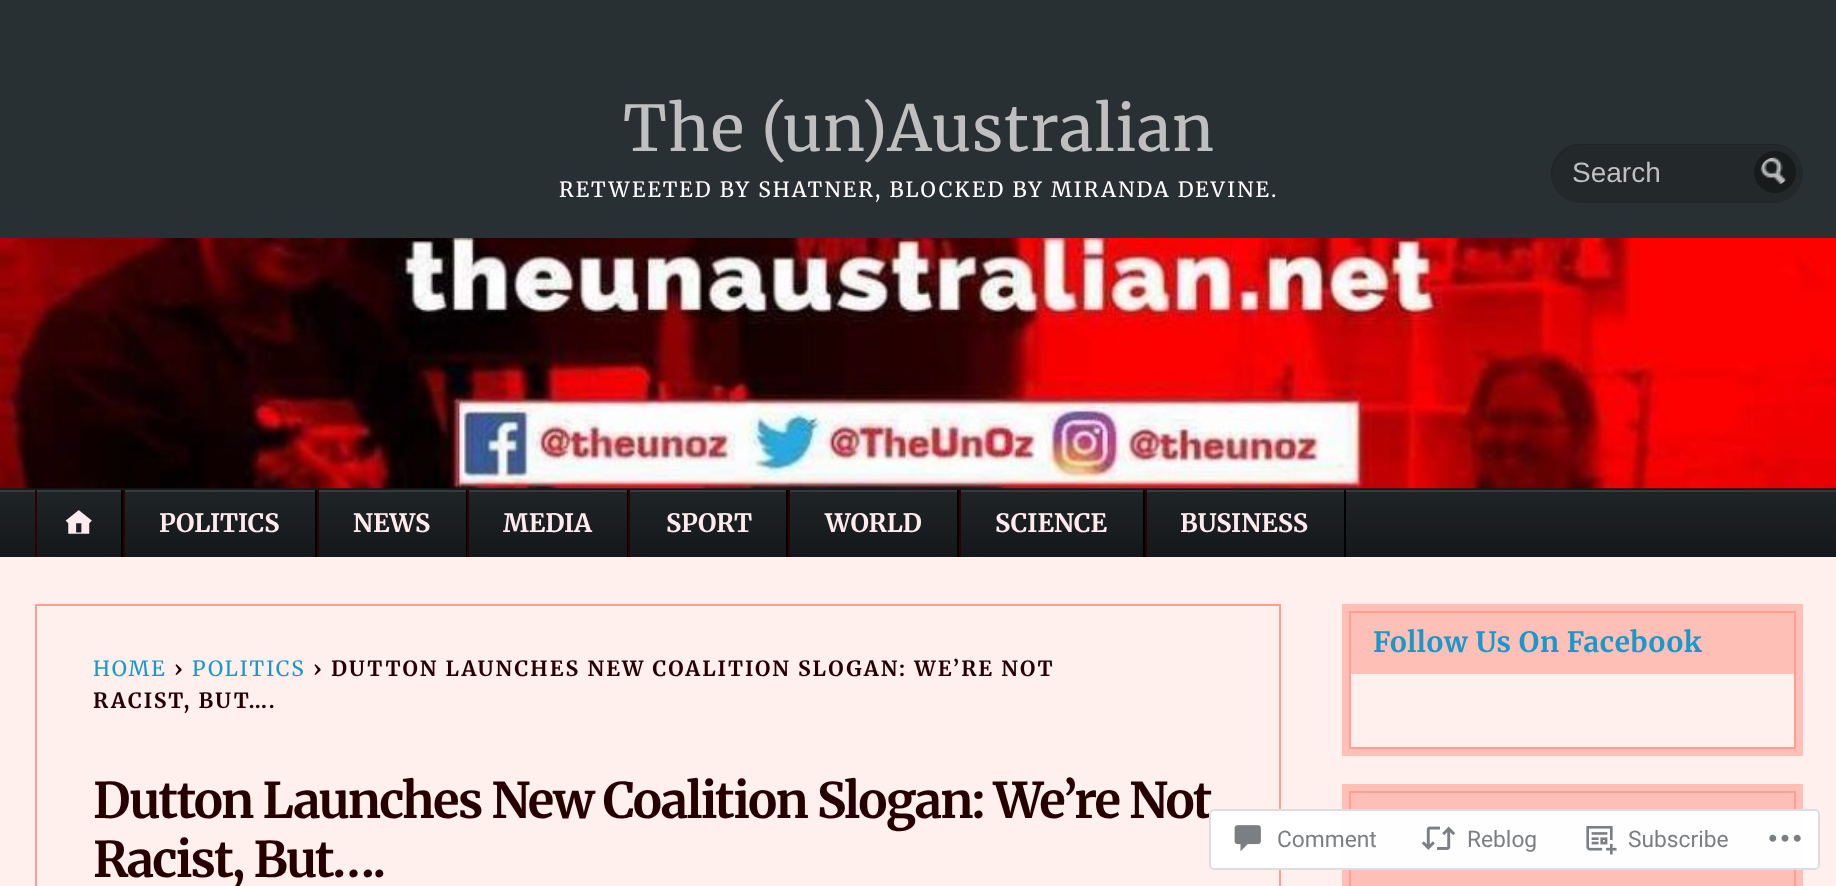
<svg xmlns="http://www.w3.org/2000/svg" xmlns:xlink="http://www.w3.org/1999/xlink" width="1836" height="886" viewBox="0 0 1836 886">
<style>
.cls-1{font:63px Merriweather;letter-spacing:1.25px;fill:#bfbfbf}
.cls-2{font:21px Merriweather;letter-spacing:2.1px;fill:#ffffff}
.cls-3{font:28px Liberation Sans;fill:#bfbfbf}
.cls-4{font:bold 25.25px Merriweather;fill:#ffebee}
.cls-5{font:bold 28px Merriweather;letter-spacing:0.6px;fill:#1899cb}
.cls-6{font:21px Merriweather;letter-spacing:2.1px;fill:#1899cb}
.cls-7{font:bold 21px Merriweather;letter-spacing:2.1px;fill:#260000}
.cls-8{font:bold 49px Merriweather;letter-spacing:-1.75px;fill:#260000}
.cls-9{font:22.75px Roboto;fill:#7b7f84}
</style>
<defs>
<linearGradient id="g1" gradientUnits="userSpaceOnUse" x1="919" y1="423" x2="919" y2="490"><stop offset="0" stop-color="#1f2426"/><stop offset="1" stop-color="#15181a"/></linearGradient>
<linearGradient id="g2" gradientUnits="userSpaceOnUse" x1="919" y1="490" x2="919" y2="557"><stop offset="0" stop-color="#1f2426"/><stop offset="1" stop-color="#15181a"/></linearGradient>
<clipPath id="clip1"><rect x="0" y="490" width="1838" height="67"/></clipPath>
</defs>
<rect width="100%" height="100%" fill="#ffefed"/>
<rect fill="#293033" x="0" y="0" width="1836" height="238"/>
<rect fill="#23292b" x="1551" y="144" width="252" height="59" rx="29.5"/>
<path fill="#000000" fill-opacity="0.1" d="M1582 145H1774C1784 145 1793 150 1798 157C1793 149 1784 144 1774 144H1580C1564 144 1551 157 1551 174C1551 181 1554 188 1558 193C1544 174 1557 145 1582 145Z"/>
<circle fill="#171b1c" cx="1775" cy="172" r="21"/>
<image xlink:href="image0.png" x="1760" y="157" width="26" height="28"/>
<rect fill="url(#g1)" x="0" y="488" width="1836" height="2"/>
<image xlink:href="image1.png" x="0" y="238" width="1836" height="251"/>
<rect fill="url(#g2)" x="0" y="492" width="1836" height="65"/>
<g clip-path="url(#clip1)">
<path fill="#353a3c" fill-rule="evenodd" d="M-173 317H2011V730H-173ZM0 492H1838C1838 492 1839 493 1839 494V560C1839 561 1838 562 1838 562H0C-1 562-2 561-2 560V494C-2 493-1 492 0 492Z"/>
</g>
<rect fill="#000000" x="121" y="490" width="2" height="67"/>
<rect fill="#2d0102" x="35" y="490" width="2" height="67"/>
<image xlink:href="image2.png" x="65" y="510" width="27" height="24"/>
<rect fill="#000000" x="315" y="490" width="2" height="67"/>
<rect fill="#2d0102" x="123" y="490" width="2" height="67"/>
<rect fill="#000000" x="466" y="490" width="1" height="67"/>
<rect fill="#2d0102" x="317" y="490" width="2" height="67"/>
<rect fill="#000000" x="627" y="490" width="1" height="67"/>
<rect fill="#2d0102" x="467" y="490" width="2" height="67"/>
<rect fill="#000000" x="786" y="490" width="2" height="67"/>
<rect fill="#2d0102" x="628" y="490" width="2" height="67"/>
<rect fill="#000000" x="957" y="490" width="2" height="67"/>
<rect fill="#2d0102" x="788" y="490" width="2" height="67"/>
<rect fill="#000000" x="1143" y="490" width="2" height="67"/>
<rect fill="#2d0102" x="959" y="490" width="2" height="67"/>
<rect fill="#000000" x="1344" y="490" width="2" height="67"/>
<rect fill="#2d0102" x="1145" y="490" width="2" height="67"/>
<rect fill="#febfb7" x="1342" y="604" width="461" height="152"/>
<rect fill="#ffefed" x="1351" y="674" width="443" height="73"/>
<rect fill="none" stroke="#ff9e91" stroke-width="2" x="1350" y="612" width="445" height="136"/>
<rect fill="#febfb7" x="1342" y="784" width="461" height="102"/>
<rect fill="none" stroke="#ff9e91" stroke-width="2" x="1350" y="792" width="445" height="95"/>
<rect fill="none" stroke="#ff9e91" stroke-width="2" x="36" y="605" width="1244" height="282"/>
<text class="cls-1" x="623" y="151">The (un)Australian</text>
<text class="cls-2" x="559" y="197">RETWEETED BY SHATNER, BLOCKED BY MIRANDA DEVINE.</text>
<text class="cls-3" x="1572" y="182">Search</text>
<text class="cls-4" x="159" y="532">POLITICS</text>
<text class="cls-4" x="353" y="532">NEWS</text>
<text class="cls-4" x="503" y="532">MEDIA</text>
<text class="cls-4" x="666" y="532">SPORT</text>
<text class="cls-4" x="825" y="532">WORLD</text>
<text class="cls-4" x="995" y="532">SCIENCE</text>
<text class="cls-4" x="1180" y="532">BUSINESS</text>
<text class="cls-5" x="1373" y="652">Follow Us On Facebook</text>
<text class="cls-6" x="93" y="676">HOME</text>
<text class="cls-7" x="174" y="676">›</text>
<text class="cls-6" x="192" y="676">POLITICS</text>
<text class="cls-7" x="313" y="676">› DUTTON LAUNCHES NEW COALITION SLOGAN: WE’RE NOT</text>
<text class="cls-7" x="93" y="708">RACIST, BUT….</text>
<text class="cls-8"><tspan x="93" y="818">Dutton Launches New Coalition Slogan: We’re Not</tspan><tspan x="93" y="877">Racist, But….</tspan></text>
<rect fill="#ffffff" fill-opacity="0.98" x="1209" y="809" width="611" height="61" rx="5"/>
<rect fill="none" stroke="#dcdcde" stroke-opacity="0.98" stroke-width="2" x="1210" y="810" width="609" height="59" rx="4"/>
<image xlink:href="image3.png" x="1234" y="825" width="27" height="27"/>
<text class="cls-9" x="1277" y="847">Comment</text>
<image xlink:href="image4.png" x="1421" y="826" width="35" height="24"/>
<text class="cls-9" x="1467" y="847">Reblog</text>
<image xlink:href="image5.png" x="1586" y="826" width="31" height="29"/>
<text class="cls-9" x="1628" y="847">Subscribe</text>
<image xlink:href="image6.png" x="1769" y="834" width="32" height="8"/>
</svg>
